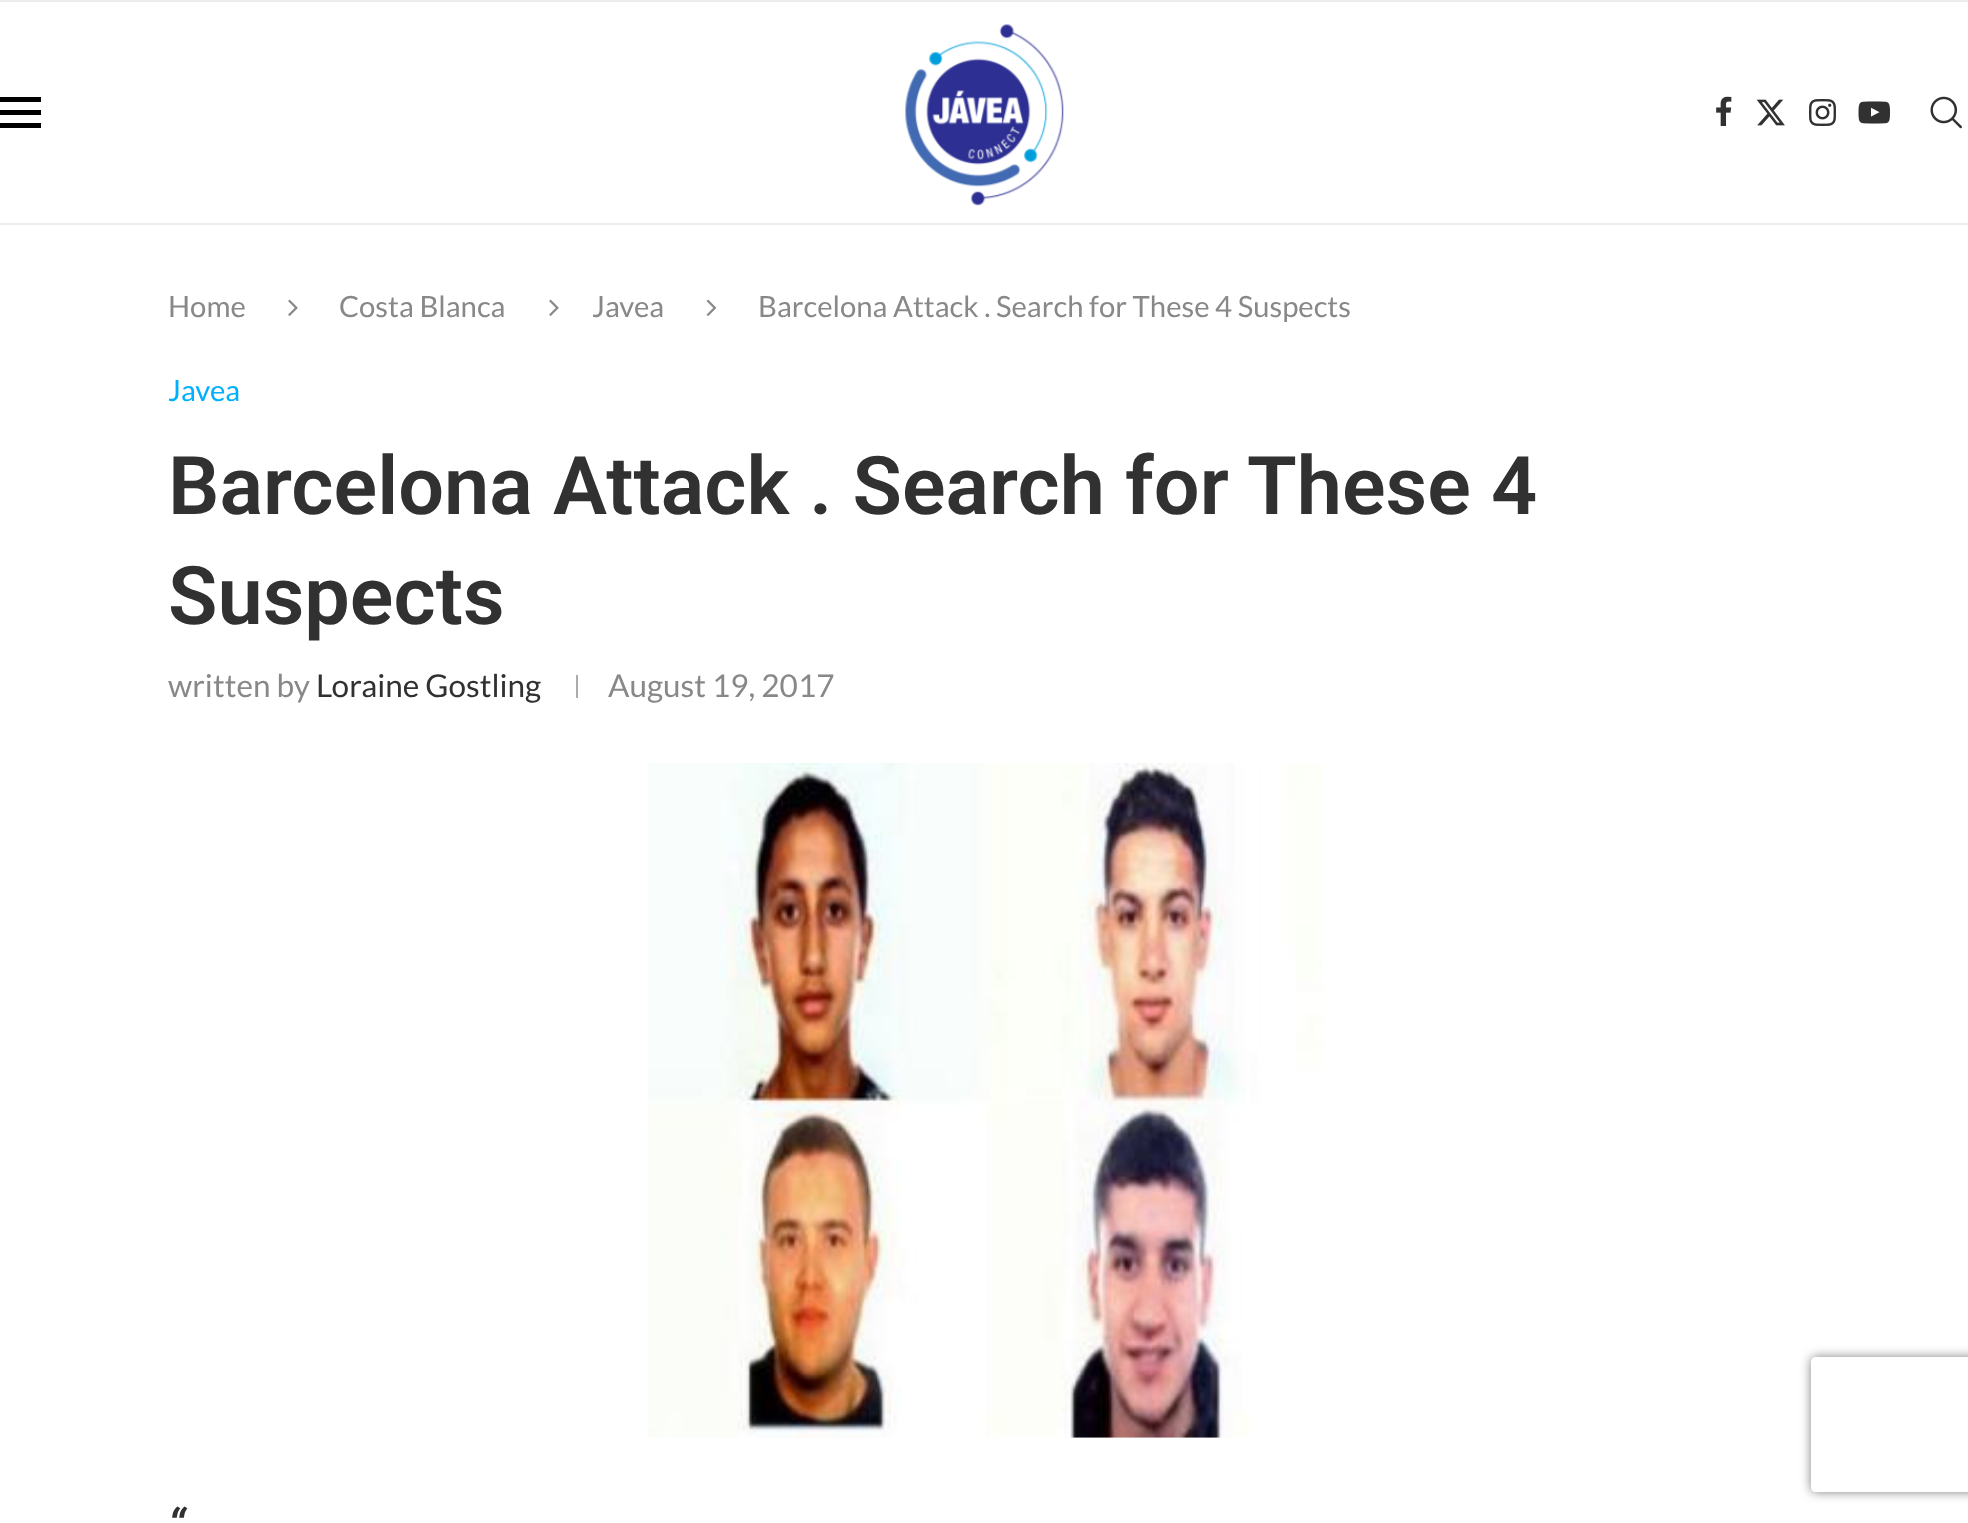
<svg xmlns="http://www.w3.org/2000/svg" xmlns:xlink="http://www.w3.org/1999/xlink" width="1968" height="1523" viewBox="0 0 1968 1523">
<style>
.cls-1{font:29.25px Lato;fill:#888888}
.cls-2{font:29.25px Lato;fill:#00b0ff}
.cls-3{font:600 81px Roboto;fill:#313131}
.cls-4{font:31.5px Lato;fill:#888888}
.cls-5{font:31.5px Lato;fill:#313131}
.cls-6{font:italic 600 45px Roboto;fill:#313131}
</style>
<defs>
<clipPath id="clip1"><path d="M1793 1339H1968V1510H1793ZM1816 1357H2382C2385 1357 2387 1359 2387 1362V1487C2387 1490 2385 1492 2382 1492H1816C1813 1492 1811 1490 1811 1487V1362C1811 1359 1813 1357 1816 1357Z" clip-rule="evenodd"/></clipPath>
</defs>
<rect width="100%" height="100%" fill="#ffffff"/>
<rect fill="#ececec" x="0" y="0" width="1968" height="2"/>
<rect fill="#ececec" x="0" y="223" width="1968" height="2"/>
<rect fill="#000000" x="0" y="97" width="41" height="5"/>
<rect fill="#000000" x="0" y="110" width="41" height="5"/>
<rect fill="#000000" x="0" y="123" width="41" height="5"/>
<image xlink:href="image0.png" x="905" y="24" width="159" height="182"/>
<image xlink:href="image1.png" x="1716" y="96" width="16" height="30"/>
<image xlink:href="image2.png" x="1756" y="99" width="29" height="27"/>
<image xlink:href="image3.png" x="1809" y="99" width="27" height="27"/>
<image xlink:href="image4.png" x="1858" y="101" width="32" height="23"/>
<image xlink:href="image5.png" x="1930" y="96" width="32" height="33"/>
<image xlink:href="image6.png" x="288" y="299" width="10" height="17"/>
<image xlink:href="image6.png" x="549" y="299" width="10" height="17"/>
<image xlink:href="image7.png" x="706" y="299" width="11" height="17"/>
<rect fill="#acacac" x="576" y="675" width="2" height="23"/>
<image xlink:href="image8.png" x="648" y="763" width="675" height="675"/>
<g clip-path="url(#clip1)">
<rect fill="#808080" filter="blur(5.5px)" x="1811" y="1357" width="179" height="135" rx="5"/>
</g>
<text class="cls-1" x="168" y="317">Home</text>
<text class="cls-1" x="339" y="317">Costa Blanca</text>
<text class="cls-1" x="592" y="317">Javea</text>
<text class="cls-1" x="758" y="317">Barcelona Attack . Search for These 4 Suspects</text>
<text class="cls-2" x="168" y="401">Javea</text>
<text class="cls-3"><tspan x="168" y="514">Barcelona Attack . Search for These 4</tspan><tspan x="168" y="624">Suspects</tspan></text>
<text class="cls-4" x="168" y="697">written by</text>
<text class="cls-5" x="316" y="697">Loraine Gostling</text>
<text class="cls-4" x="608" y="697">August 19, 2017</text>
<text class="cls-6" x="168" y="1541">“</text>
</svg>
